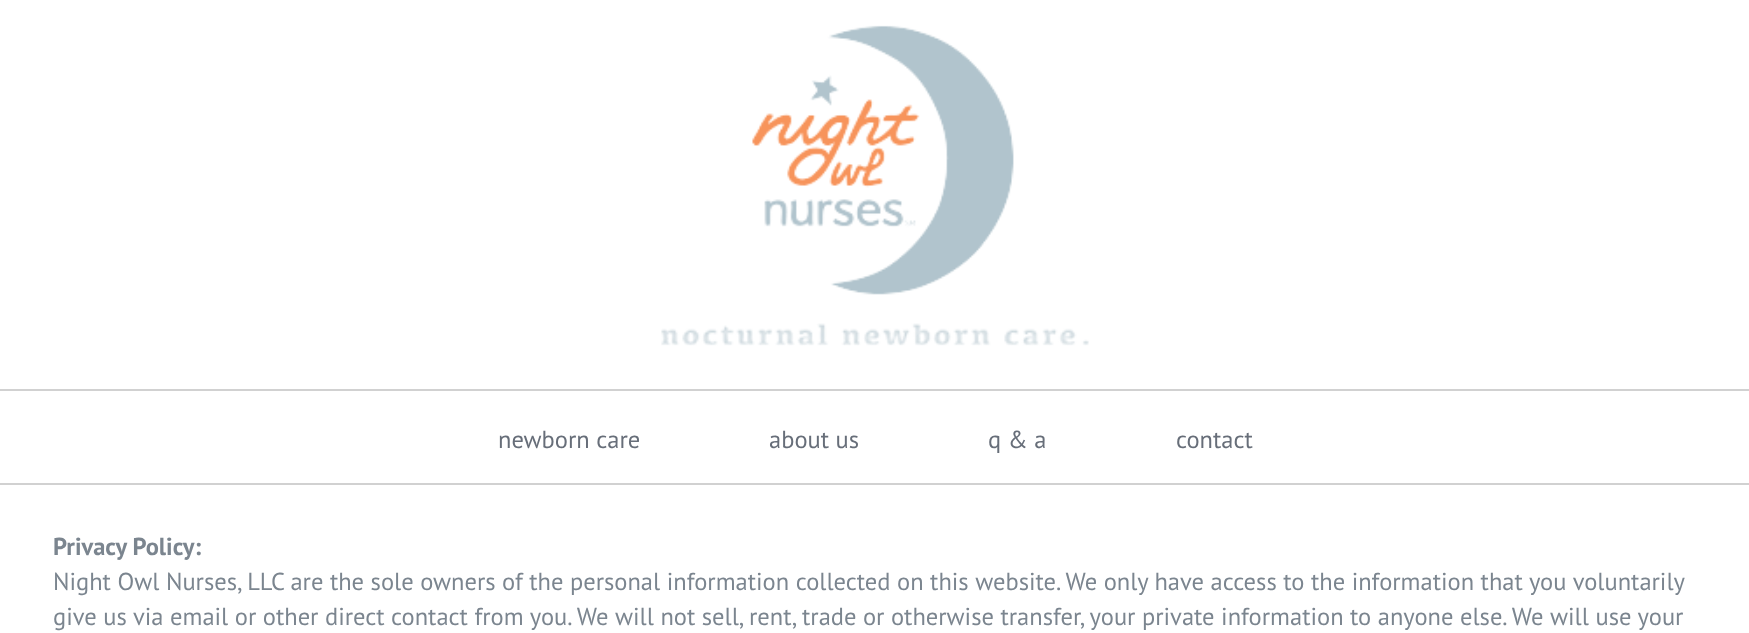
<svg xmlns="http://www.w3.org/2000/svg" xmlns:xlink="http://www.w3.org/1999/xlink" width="1749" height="633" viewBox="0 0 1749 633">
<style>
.cls-1{font:24.5px PT Sans;fill:#676e79}
.cls-2{font:bold 24.5px PT Sans;fill:#7b858f}
.cls-3{font:24.5px PT Sans;fill:#7b858f}
</style>
<rect width="100%" height="100%" fill="#ffffff"/>
<rect fill="#d1d1d1" x="0" y="389" width="1749" height="2"/>
<image xlink:href="image0.png" x="661" y="25" width="428" height="321"/>
<rect fill="#d1d1d1" x="0" y="483" width="1749" height="2"/>
<text class="cls-1" x="498" y="448">newborn care</text>
<text class="cls-1" x="769" y="448">about us</text>
<text class="cls-1" x="988" y="448">q &amp; a</text>
<text class="cls-1" x="1176" y="448">contact</text>
<text class="cls-2" x="53" y="555">Privacy Policy:</text>
<text class="cls-3"><tspan x="53" y="590">Night Owl Nurses, LLC are the sole owners of the personal information collected on this website. We only have access to the information that you voluntarily</tspan><tspan x="53" y="625">give us via email or other direct contact from you. We will not sell, rent, trade or otherwise transfer, your private information to anyone else. We will use your</tspan></text>
</svg>
